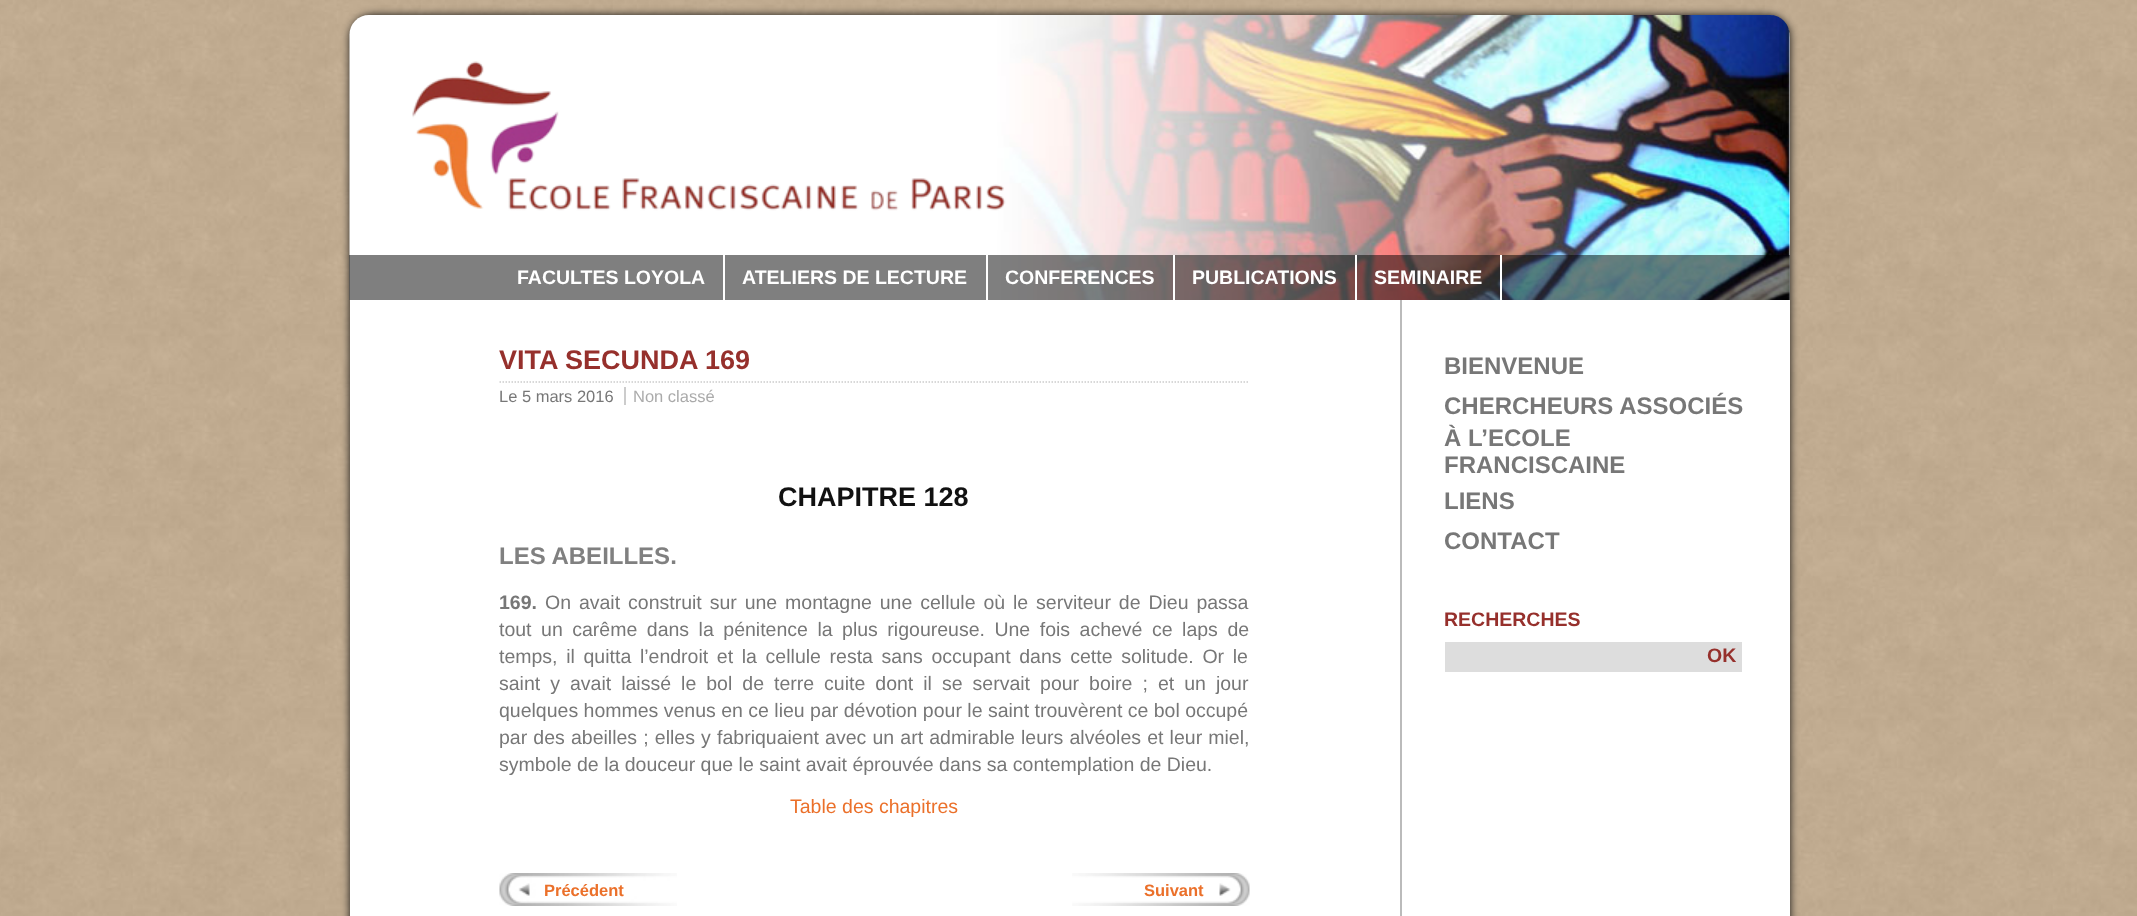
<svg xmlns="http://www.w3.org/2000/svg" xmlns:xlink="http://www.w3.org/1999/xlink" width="2137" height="916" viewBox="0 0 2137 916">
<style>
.cls-1{font:bold 19.5px Liberation Sans;fill:#ffffff}
.cls-2{font:bold 27px Liberation Sans;fill:#96302c}
.cls-3{font:16.5px Liberation Sans;fill:#777777}
.cls-4{font:16.5px Liberation Sans;fill:#aaaaaa}
.cls-5{font:bold 27px Liberation Sans;fill:#111111}
.cls-6{font:bold 24px Liberation Sans;fill:#808080}
.cls-7{font:bold 19.5px Liberation Sans;fill:#777777}
.cls-8{font:19.5px Liberation Sans;fill:#777777}
.cls-9{font:19.5px Liberation Sans;fill:#eb702a}
.cls-10{font:bold 16.5px Liberation Sans;fill:#eb702a}
.cls-11{font:bold 24px Liberation Sans;fill:#777777}
.cls-12{font:bold 19.5px Liberation Sans;fill:#96302c}
</style>
<rect width="100%" height="100%" fill="#ffffff"/>
<image xlink:href="image0.png" x="0" y="0" width="2137" height="916"/>
<rect fill="#111111" filter="blur(4px)" x="350" y="15" width="1440" height="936" rx="23"/>
<rect fill="#ffffff" x="350" y="15" width="1440" height="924" rx="23"/>
<image xlink:href="image1.png" x="349" y="15" width="1441" height="285"/>
<image xlink:href="image2.png" x="412" y="61" width="594" height="150"/>
<rect fill="#000000" fill-opacity="0.5" x="349" y="255" width="1441" height="45"/>
<rect fill="#ffffff" x="723" y="255" width="2" height="45"/>
<rect fill="#ffffff" x="986" y="255" width="2" height="45"/>
<rect fill="#ffffff" x="1173" y="255" width="2" height="45"/>
<rect fill="#ffffff" x="1355" y="255" width="2" height="45"/>
<rect fill="#ffffff" x="1500" y="255" width="2" height="45"/>
<rect fill="#bbbbbb" x="1400" y="300" width="2" height="616"/>
<path fill="none" stroke="#cccccc" stroke-width="1.5" stroke-dasharray="1.5 1.5" d="M499.5 382H1249.5"/>
<rect fill="#cccccc" x="624" y="387" width="2" height="18"/>
<image xlink:href="image3.png" x="499" y="873" width="178" height="33"/>
<image xlink:href="image4.png" x="1072" y="873" width="178" height="33"/>
<rect fill="#dddddd" x="1445" y="642" width="297" height="30"/>
<text class="cls-1" x="517" y="284">FACULTES LOYOLA</text>
<text class="cls-1" x="742" y="284">ATELIERS DE LECTURE</text>
<text class="cls-1" x="1005" y="284">CONFERENCES</text>
<text class="cls-1" x="1192" y="284">PUBLICATIONS</text>
<text class="cls-1" x="1374" y="284">SEMINAIRE</text>
<text class="cls-2" x="499" y="369">VITA SECUNDA 169</text>
<text class="cls-3" x="499" y="402">Le 5 mars 2016</text>
<text class="cls-4" x="633" y="402">Non classé</text>
<text class="cls-5" x="778" y="506">CHAPITRE 128</text>
<text class="cls-6" x="499" y="564">LES ABEILLES.</text>
<text class="cls-7" x="499" y="609">169.</text>
<text class="cls-8" x="545" y="609" word-spacing="2.5">On avait construit sur une montagne une cellule où le serviteur de Dieu passa</text>
<text class="cls-8"><tspan x="499" y="636" word-spacing="4.1">tout un carême dans la pénitence la plus rigoureuse. Une fois achevé ce laps de</tspan><tspan x="499" y="663" word-spacing="3.25">temps, il quitta l’endroit et la cellule resta sans occupant dans cette solitude. Or le</tspan><tspan x="499" y="690" word-spacing="4.6">saint y avait laissé le bol de terre cuite dont il se servait pour boire ; et un jour</tspan><tspan x="499" y="717">quelques hommes venus en ce lieu par dévotion pour le saint trouvèrent ce bol occupé</tspan><tspan x="499" y="744" word-spacing="0.75">par des abeilles ; elles y fabriquaient avec un art admirable leurs alvéoles et leur miel,</tspan><tspan x="499" y="771">symbole de la douceur que le saint avait éprouvée dans sa contemplation de Dieu.</tspan></text>
<text class="cls-9" x="790" y="813">Table des chapitres</text>
<text class="cls-10" x="544" y="896">Précédent</text>
<text class="cls-10" x="1144" y="896">Suivant</text>
<text class="cls-11"><tspan x="1444" y="374">BIENVENUE</tspan><tspan x="1444" y="414">CHERCHEURS ASSOCIÉS</tspan><tspan x="1444" y="446">À L’ECOLE</tspan><tspan x="1444" y="473">FRANCISCAINE</tspan><tspan x="1444" y="509">LIENS</tspan><tspan x="1444" y="549">CONTACT</tspan></text>
<text class="cls-12" x="1444" y="626">RECHERCHES</text>
<text class="cls-12" x="1707" y="662">OK</text>
</svg>
